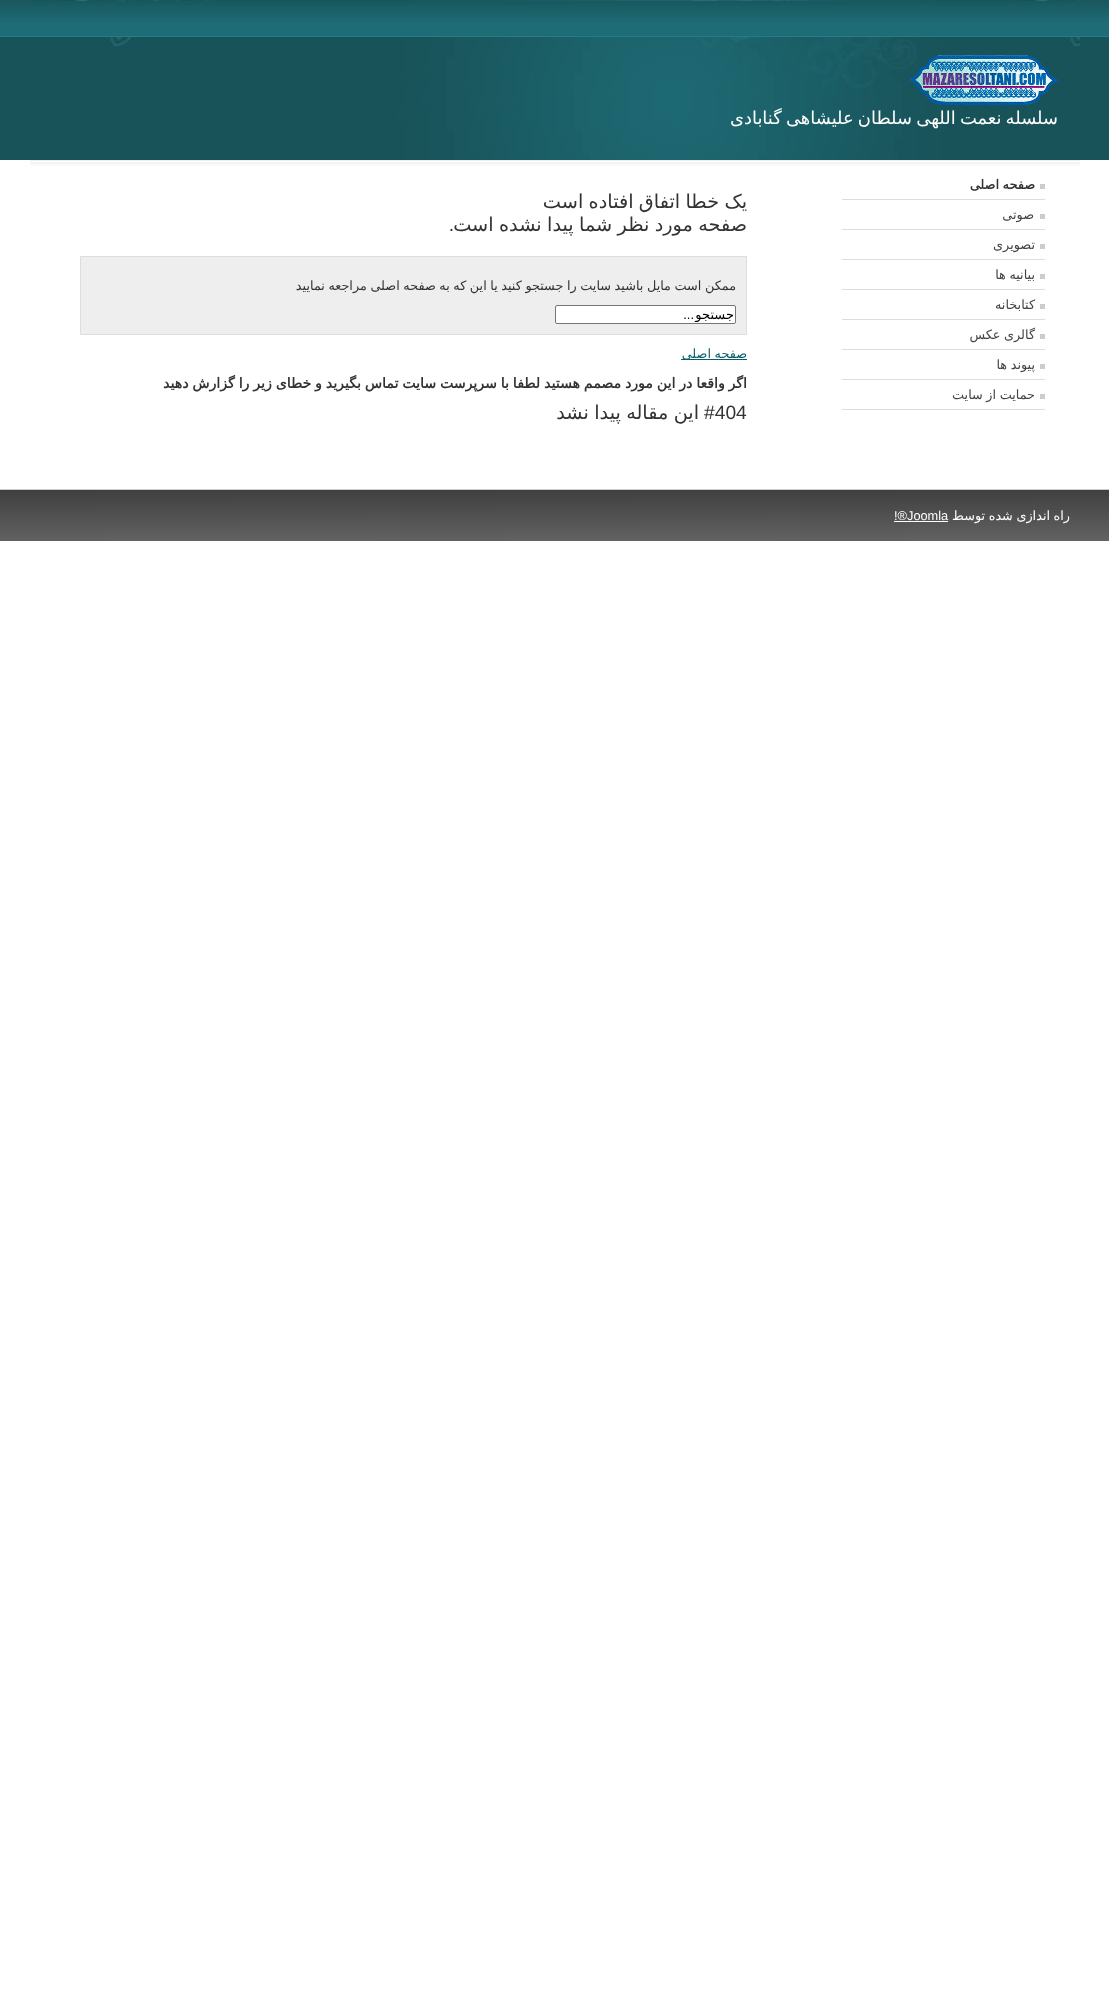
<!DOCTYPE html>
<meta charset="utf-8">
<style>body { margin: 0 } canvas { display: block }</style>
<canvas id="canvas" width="1109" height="2002"></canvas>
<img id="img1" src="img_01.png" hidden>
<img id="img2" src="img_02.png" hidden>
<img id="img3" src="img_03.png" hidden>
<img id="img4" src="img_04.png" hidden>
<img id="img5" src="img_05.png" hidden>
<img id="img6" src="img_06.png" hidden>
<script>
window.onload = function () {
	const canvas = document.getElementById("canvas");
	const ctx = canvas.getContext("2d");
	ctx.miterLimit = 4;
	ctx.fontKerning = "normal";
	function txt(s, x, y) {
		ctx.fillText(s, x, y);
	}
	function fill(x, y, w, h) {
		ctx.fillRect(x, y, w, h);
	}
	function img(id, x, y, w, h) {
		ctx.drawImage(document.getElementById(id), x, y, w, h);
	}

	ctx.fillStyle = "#FFFFFF";
	fill(0, 0, 1109, 2002);
	img("img1", 0, 0, 1109, 160);
	img("img2", 30, 0, 1050, 160);
	img("img3", 30, 1, 1050, 36);
	img("img4", 909, 55, 150, 50);
	img("img5", 30, 160, 1050, 6);
	ctx.fillStyle = "#DDDDDD";
	fill(842, 199, 203, 1);
	ctx.fillStyle = "#CCCCCC";
	fill(1040, 184, 5, 5);
	ctx.fillStyle = "#DDDDDD";
	fill(842, 229, 203, 1);
	ctx.fillStyle = "#CCCCCC";
	fill(1040, 214, 5, 5);
	ctx.fillStyle = "#DDDDDD";
	fill(842, 259, 203, 1);
	ctx.fillStyle = "#CCCCCC";
	fill(1040, 244, 5, 5);
	ctx.fillStyle = "#DDDDDD";
	fill(842, 289, 203, 1);
	ctx.fillStyle = "#CCCCCC";
	fill(1040, 274, 5, 5);
	ctx.fillStyle = "#DDDDDD";
	fill(842, 319, 203, 1);
	ctx.fillStyle = "#CCCCCC";
	fill(1040, 304, 5, 5);
	ctx.fillStyle = "#DDDDDD";
	fill(842, 349, 203, 1);
	ctx.fillStyle = "#CCCCCC";
	fill(1040, 334, 5, 5);
	ctx.fillStyle = "#DDDDDD";
	fill(842, 379, 203, 1);
	ctx.fillStyle = "#CCCCCC";
	fill(1040, 364, 5, 5);
	ctx.fillStyle = "#DDDDDD";
	fill(842, 409, 203, 1);
	ctx.fillStyle = "#CCCCCC";
	fill(1040, 394, 5, 5);
	ctx.fillStyle = "#EEEEEE";
	ctx.beginPath();
	ctx.rect(80.5, 256.5, 666, 78);
	ctx.fill();
	ctx.strokeStyle = "#DDDDDD";
	ctx.stroke();
	ctx.fillStyle = "#FFFFFF";
	ctx.beginPath();
	ctx.roundRect(555.5, 305.5, 180, 18, 1.5);
	ctx.fill();
	ctx.strokeStyle = "#767676";
	ctx.stroke();
	ctx.fillStyle = "#0A5E69";
	fill(681, 359, 66, 1);
	ctx.fillStyle = "#CCCCCC";
	fill(0, 489, 1109, 1);
	img("img6", 0, 490, 1109, 51);
	ctx.fillStyle = "#FFFFFF";
	fill(894, 521, 54, 1);
	ctx.wordSpacing = "-1.5px";
	ctx.direction = "rtl";
	ctx.font = "17.9px DejaVu Sans";
	txt("سلسله نعمت اللهی سلطان علیشاهی گنابادی", 1058, 124);
	ctx.wordSpacing = "-0.5px";
	ctx.font = "bold 12.8px DejaVu Sans";
	ctx.fillStyle = "#333333";
	txt("صفحه اصلی", 1035, 189);
	ctx.wordSpacing = "0px";
	ctx.font = "12.8px DejaVu Sans";
	ctx.fillStyle = "#444444";
	txt("صوتی", 1034, 219);
	txt("تصویری", 1035, 249);
	ctx.wordSpacing = "-0.5px";
	txt("بیانیه ها", 1035, 279);
	ctx.wordSpacing = "0px";
	txt("کتابخانه", 1035, 309);
	ctx.wordSpacing = "-0.5px";
	txt("گالری عکس", 1035, 339);
	txt("پیوند ها", 1035, 369);
	txt("حمایت از سایت", 1035, 399);
	ctx.wordSpacing = "-0.75px";
	ctx.font = "19.25px DejaVu Sans";
	ctx.fillStyle = "#333333";
	txt("یک خطا اتفاق افتاده است", 747, 208);
	txt("صفحه مورد نظر شما پیدا نشده است", 747, 231);
	ctx.wordSpacing = "0px";
	ctx.font = "19.25px Liberation Sans";
	txt(".", 454, 231);
	ctx.wordSpacing = "-0.5px";
	ctx.font = "12.8px DejaVu Sans";
	txt("ممکن است مایل باشید سایت را جستجو کنید یا این که به صفحه اصلی مراجعه نمایید", 736, 290);
	ctx.save();
	ctx.beginPath();
	ctx.rect(557, 307, 177, 15);
	ctx.clip();
	ctx.wordSpacing = "0px";
	ctx.font = "13px DejaVu Sans";
	ctx.fillStyle = "#000000";
	txt("جستجو", 734, 319);
	ctx.restore();
	ctx.wordSpacing = "0px";
	ctx.font = "13px Liberation Sans";
	ctx.fillStyle = "#000000";
	txt("...", 694, 319);
	ctx.wordSpacing = "-0.5px";
	ctx.font = "12.8px DejaVu Sans";
	ctx.fillStyle = "#0A5E69";
	txt("صفحه اصلی", 747, 358);
	ctx.wordSpacing = "-0.6px";
	ctx.font = "bold 14.1px DejaVu Sans";
	ctx.fillStyle = "#333333";
	txt("اگر واقعا در این مورد مصمم هستید لطفا با سرپرست سایت تماس بگیرید و خطای زیر را گزارش دهید", 747, 388);
	ctx.wordSpacing = "0px";
	ctx.direction = "ltr";
	ctx.font = "19.25px Liberation Sans";
	txt("#404", 704, 419);
	ctx.wordSpacing = "-0.75px";
	ctx.direction = "rtl";
	ctx.font = "19.25px DejaVu Sans";
	txt("این مقاله پیدا نشد", 699, 419);
	ctx.wordSpacing = "-0.5px";
	ctx.font = "12.8px DejaVu Sans";
	ctx.fillStyle = "#FFFFFF";
	txt("راه اندازی شده توسط", 1070, 520);
	ctx.wordSpacing = "0px";
	ctx.direction = "ltr";
	ctx.font = "12.8px Liberation Sans";
	txt("!®Joomla", 894, 520);
};
</script>
